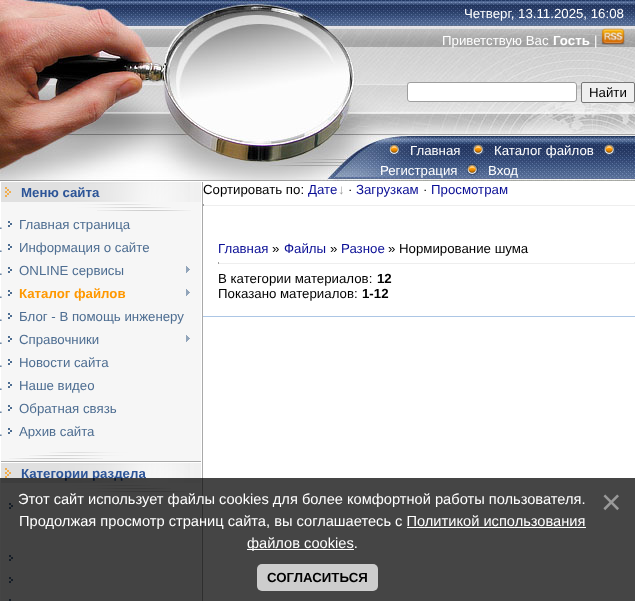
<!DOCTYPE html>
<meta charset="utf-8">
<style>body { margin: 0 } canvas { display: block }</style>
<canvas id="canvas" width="635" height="601"></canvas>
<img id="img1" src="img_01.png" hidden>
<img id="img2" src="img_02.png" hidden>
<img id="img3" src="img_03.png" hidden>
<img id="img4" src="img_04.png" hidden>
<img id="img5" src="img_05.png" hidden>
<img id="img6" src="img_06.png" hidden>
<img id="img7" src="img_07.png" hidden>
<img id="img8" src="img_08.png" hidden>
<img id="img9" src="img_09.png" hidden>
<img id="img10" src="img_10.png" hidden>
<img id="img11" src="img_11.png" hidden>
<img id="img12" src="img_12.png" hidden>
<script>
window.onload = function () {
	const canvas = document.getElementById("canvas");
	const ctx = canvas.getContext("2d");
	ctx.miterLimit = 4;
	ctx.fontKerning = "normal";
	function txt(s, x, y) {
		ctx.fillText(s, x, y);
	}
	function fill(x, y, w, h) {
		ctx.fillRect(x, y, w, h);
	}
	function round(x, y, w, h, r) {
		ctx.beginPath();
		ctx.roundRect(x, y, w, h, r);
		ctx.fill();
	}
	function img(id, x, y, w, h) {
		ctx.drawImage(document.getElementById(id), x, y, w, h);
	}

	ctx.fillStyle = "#FFFFFF";
	fill(0, 0, 635, 601);
	img("img1", 0, 0, 360, 181);
	img("img2", 360, 0, 275, 181);
	img("img3", 601, 28, 24, 17);
	ctx.beginPath();
	ctx.roundRect(407.5, 82.5, 169, 19, 2.5);
	ctx.fill();
	ctx.strokeStyle = "#9E9E9E";
	ctx.stroke();
	ctx.fillStyle = "#EFEFEF";
	ctx.beginPath();
	ctx.roundRect(581.5, 82.5, 53, 20, 1.5);
	ctx.fill();
	ctx.strokeStyle = "#767676";
	ctx.stroke();
	img("img4", 389, 144, 11, 11);
	img("img5", 473, 144, 11, 11);
	img("img6", 604, 144, 11, 11);
	img("img7", 467, 164, 11, 11);
	img("img8", 1, 182, 200, 20);
	img("img9", 1, 202, 200, 10);
	ctx.fillStyle = "#F6F6F6";
	fill(1, 212, 200, 240);
	img("img10", 8, 221, 4, 6);
	img("img10", 8, 244, 4, 6);
	img("img10", 8, 267, 4, 6);
	img("img11", 186, 266, 4, 7);
	img("img10", 8, 290, 4, 6);
	img("img11", 186, 289, 4, 7);
	img("img10", 8, 313, 4, 6);
	img("img10", 8, 336, 4, 6);
	img("img11", 186, 335, 4, 7);
	img("img10", 8, 359, 4, 6);
	img("img10", 8, 382, 4, 6);
	img("img10", 8, 405, 4, 6);
	img("img10", 8, 428, 4, 6);
	img("img12", 1, 452, 200, 10);
	img("img8", 1, 463, 200, 20);
	img("img9", 1, 483, 200, 10);
	fill(1, 493, 200, 108);
	img("img10", 9, 503, 4, 6);
	img("img10", 9, 555, 4, 6);
	img("img10", 9, 577, 4, 6);
	ctx.fillStyle = "#4D6D91";
	fill(9, 599, 2, 2);
	ctx.fillStyle = "#A9A9A9";
	fill(202, 182, 1, 419);
	ctx.fillStyle = "#EEEEEE";
	fill(203, 205, 432, 1);
	ctx.fillStyle = "#9F9F9F";
	fill(203, 204, 1, 2);
	ctx.fillStyle = "#EEEEEE";
	fill(634, 262, 1, 2);
	fill(218, 263, 417, 1);
	ctx.fillStyle = "#9F9F9F";
	fill(218, 262, 1, 2);
	ctx.fillStyle = "#ACC6E5";
	fill(203, 316, 432, 1);
	ctx.font = "13.25px Liberation Sans";
	ctx.fillStyle = "#FFFFFF";
	txt("Четверг, 13.11.2025, 16:08", 464, 18);
	txt("Приветствую Вас", 442, 45);
	ctx.font = "bold 13.25px Liberation Sans";
	txt("Гость", 553, 45);
	ctx.font = "13.25px Liberation Sans";
	txt("|", 594, 45);
	ctx.fillStyle = "#000000";
	txt("Найти", 589, 97);
	ctx.fillStyle = "#FFFFFF";
	txt("Главная", 410, 155);
	txt("Каталог файлов", 494, 155);
	txt("Регистрация", 380, 175);
	txt("Вход", 488, 175);
	ctx.font = "bold 13.25px Liberation Sans";
	ctx.fillStyle = "#2C5497";
	txt("Меню сайта", 21, 197);
	ctx.font = "13.25px Liberation Sans";
	ctx.fillStyle = "#4D6D91";
	txt(".", -1, 229);
	txt("Главная страница", 19, 229);
	txt(".", -1, 252);
	txt("Информация о сайте", 19, 252);
	txt(".", -1, 275);
	txt("ONLINE сервисы", 19, 275);
	txt(".", -1, 298);
	ctx.font = "bold 13.25px Liberation Sans";
	ctx.fillStyle = "#FF9800";
	txt("Каталог файлов", 19, 298);
	ctx.font = "13.25px Liberation Sans";
	ctx.fillStyle = "#4D6D91";
	txt(".", -1, 321);
	txt("Блог - В помощь инженеру", 19, 321);
	txt(".", -1, 344);
	txt("Справочники", 19, 344);
	txt(".", -1, 367);
	txt("Новости сайта", 19, 367);
	txt(".", -1, 390);
	txt("Наше видео", 19, 390);
	txt(".", -1, 413);
	txt("Обратная связь", 19, 413);
	txt(".", -1, 436);
	txt("Архив сайта", 19, 436);
	ctx.font = "bold 13.25px Liberation Sans";
	ctx.fillStyle = "#2C5497";
	txt("Категории раздела", 21, 478);
	ctx.font = "13.25px Liberation Sans";
	ctx.fillStyle = "#000000";
	txt("Сортировать по:", 203, 194);
	ctx.fillStyle = "#0A0E95";
	txt("Дате", 308, 194);
	ctx.fillStyle = "#A0A0A0";
	txt("↓", 338, 194);
	ctx.fillStyle = "#000000";
	txt("·", 348, 194);
	ctx.fillStyle = "#0A0E95";
	txt("Загрузкам", 356, 194);
	ctx.fillStyle = "#000000";
	txt("·", 423, 194);
	ctx.fillStyle = "#0A0E95";
	txt("Просмотрам", 431, 194);
	txt("Главная", 218, 253);
	ctx.fillStyle = "#000000";
	txt("»", 272, 253);
	ctx.fillStyle = "#0A0E95";
	txt("Файлы", 284, 253);
	ctx.fillStyle = "#000000";
	txt("»", 330, 253);
	ctx.fillStyle = "#0A0E95";
	txt("Разное", 341, 253);
	ctx.fillStyle = "#000000";
	txt("» Нормирование шума", 388, 253);
	txt("В категории материалов:", 218, 283);
	ctx.font = "bold 13.25px Liberation Sans";
	txt("12", 377, 283);
	ctx.font = "13.25px Liberation Sans";
	txt("Показано материалов:", 218, 298);
	ctx.font = "bold 13.25px Liberation Sans";
	txt("1-12", 362, 298);
	ctx.fillStyle = "rgba(0, 0, 0, 0.73)";
	fill(0, 478, 635, 123);
	ctx.font = "14.65px Liberation Sans";
	ctx.fillStyle = "#FFFFFF";
	txt("Этот сайт использует файлы cookies для более комфортной работы пользователя.", 18, 504);
	txt("Продолжая просмотр страниц сайта, вы соглашаетесь с Политикой использования", 19, 526);
	fill(407, 527, 179, 1);
	fill(247, 549, 107, 1);
	txt("файлов cookies.", 247, 548);
	ctx.font = "35px Liberation Sans";
	ctx.fillStyle = "#999999";
	txt("×", 601, 514);
	ctx.fillStyle = "#CDCDCD";
	round(257, 564, 121, 27, 5);
	ctx.font = "bold 13.25px Liberation Sans";
	ctx.fillStyle = "#000000";
	txt("СОГЛАСИТЬСЯ", 267, 582);
};
</script>
